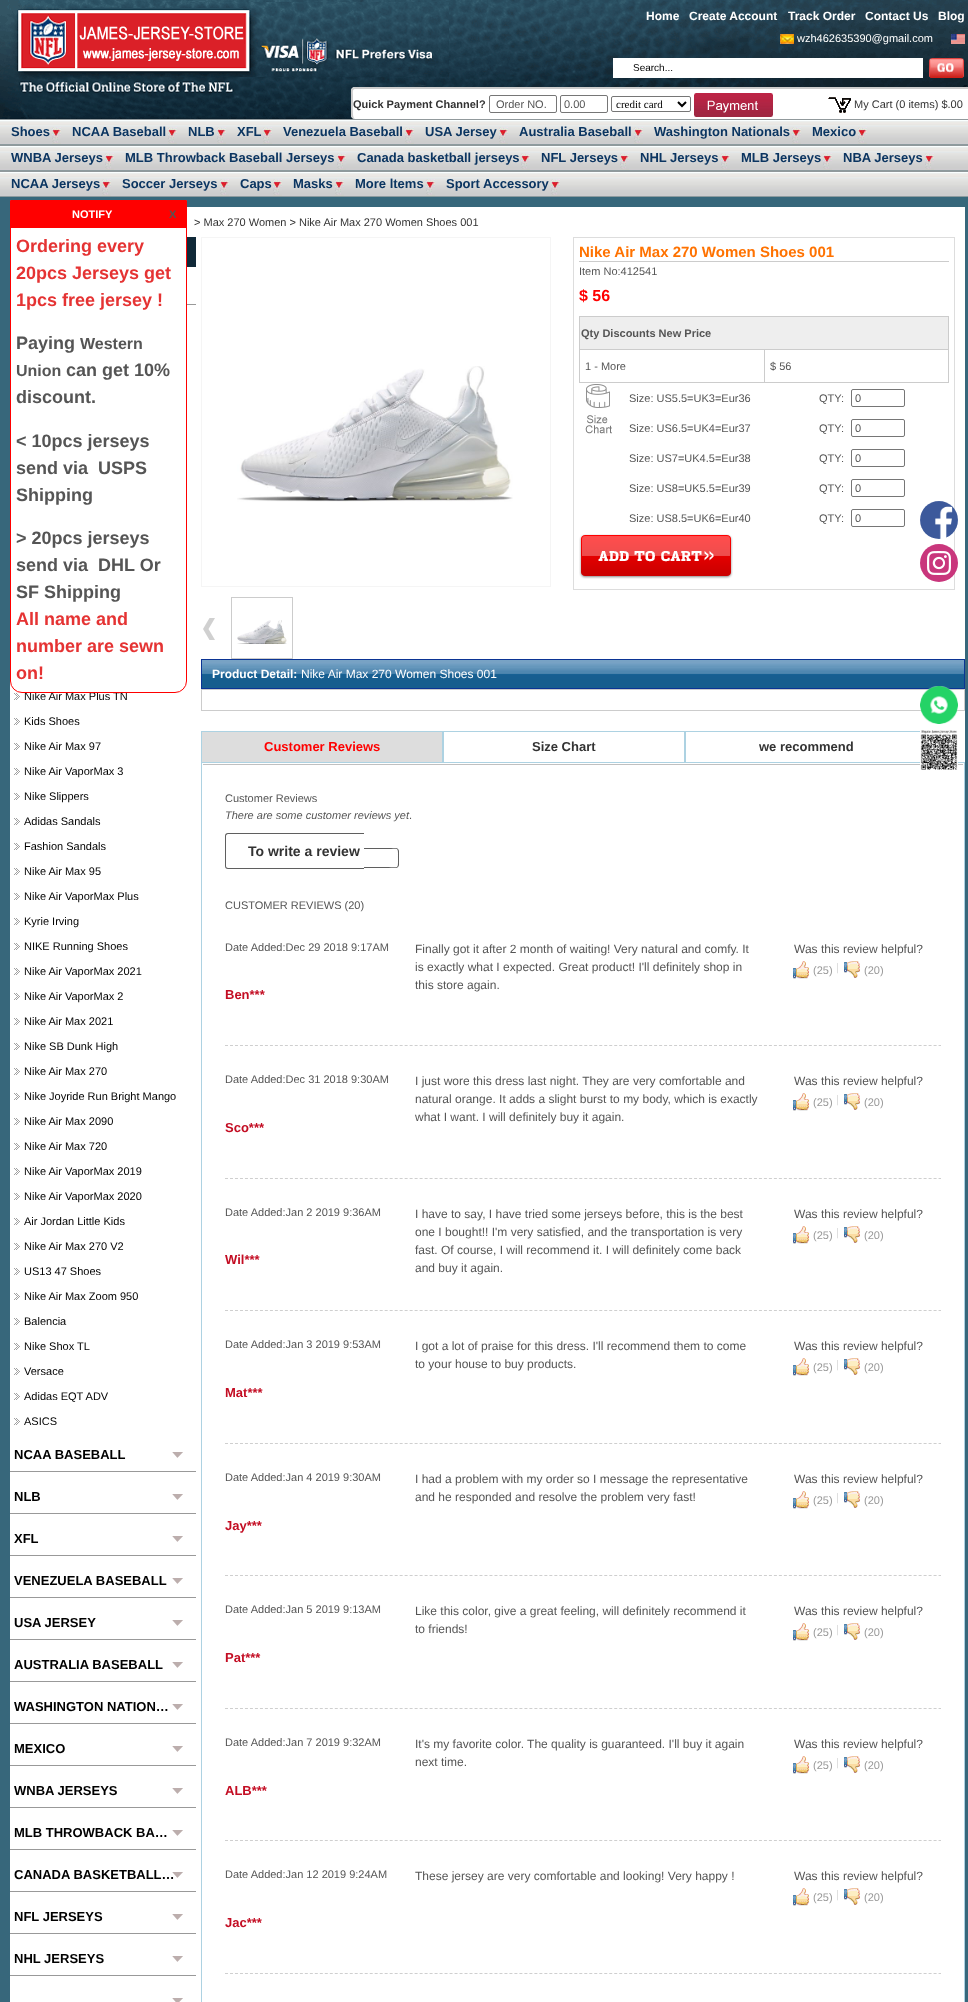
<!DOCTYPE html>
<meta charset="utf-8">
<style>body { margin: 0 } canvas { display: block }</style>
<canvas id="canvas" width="968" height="2002"></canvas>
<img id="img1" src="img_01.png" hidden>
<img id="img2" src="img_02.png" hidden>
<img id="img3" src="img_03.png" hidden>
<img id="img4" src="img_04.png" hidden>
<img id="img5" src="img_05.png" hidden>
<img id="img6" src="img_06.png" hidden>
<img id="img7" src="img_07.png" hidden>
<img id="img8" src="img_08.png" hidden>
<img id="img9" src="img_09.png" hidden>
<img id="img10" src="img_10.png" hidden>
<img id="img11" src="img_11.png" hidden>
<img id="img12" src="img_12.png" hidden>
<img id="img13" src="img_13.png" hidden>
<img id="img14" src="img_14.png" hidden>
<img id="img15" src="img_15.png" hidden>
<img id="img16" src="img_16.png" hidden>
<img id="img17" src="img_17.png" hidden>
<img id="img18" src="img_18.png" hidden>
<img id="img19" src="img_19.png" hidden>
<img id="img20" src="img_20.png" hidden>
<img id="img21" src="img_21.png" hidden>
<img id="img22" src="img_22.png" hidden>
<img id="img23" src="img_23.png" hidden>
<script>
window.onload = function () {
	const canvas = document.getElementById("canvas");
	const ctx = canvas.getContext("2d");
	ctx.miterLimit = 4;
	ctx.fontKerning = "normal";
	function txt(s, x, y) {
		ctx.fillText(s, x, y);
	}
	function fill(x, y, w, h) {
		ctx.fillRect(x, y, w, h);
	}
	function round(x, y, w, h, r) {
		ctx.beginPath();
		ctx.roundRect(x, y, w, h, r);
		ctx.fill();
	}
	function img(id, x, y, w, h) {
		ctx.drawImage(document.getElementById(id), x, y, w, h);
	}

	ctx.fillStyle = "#FFFFFF";
	fill(0, 0, 968, 2002);
	img("img1", 0, 0, 968, 119);
	img("img2", 780, 34, 14, 10);
	img("img3", 951, 34, 14, 10);
	fill(613, 58, 310, 20);
	img("img4", 929, 58, 35, 20);
	round(351, 87, 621, 32, 4);
	ctx.fillStyle = "#CCCCCC";
	ctx.beginPath();
	ctx.moveTo(355, 87);
	ctx.lineTo(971, 87);
	ctx.bezierCurveTo(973, 87, 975, 89, 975, 91);
	ctx.lineTo(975, 115);
	ctx.bezierCurveTo(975, 117, 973, 119, 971, 119);
	ctx.lineTo(355, 119);
	ctx.bezierCurveTo(353, 119, 351, 117, 351, 115);
	ctx.lineTo(351, 91);
	ctx.bezierCurveTo(351, 89, 353, 87, 355, 87);
	ctx.closePath();
	ctx.moveTo(355, 89);
	ctx.lineTo(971, 89);
	ctx.lineTo(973, 91);
	ctx.bezierCurveTo(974, 93, 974, 117, 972, 119);
	ctx.lineTo(355, 119);
	ctx.bezierCurveTo(352, 119, 353, 105, 353, 103);
	ctx.lineTo(353, 95);
	ctx.bezierCurveTo(353, 94, 352, 89, 355, 89);
	ctx.closePath();
	ctx.fill("evenodd");
	ctx.beginPath();
	ctx.roundRect(489.5, 95.5, 67, 17, 1.5);
	ctx.strokeStyle = "#767676";
	ctx.stroke();
	ctx.beginPath();
	ctx.roundRect(560.5, 95.5, 47, 17, 1.5);
	ctx.stroke();
	ctx.beginPath();
	ctx.roundRect(611.5, 96.5, 79, 15, 1.5);
	ctx.stroke();
	ctx.beginPath();
	ctx.moveTo(678, 102);
	ctx.lineTo(682, 106);
	ctx.lineTo(686, 102);
	ctx.strokeStyle = "#000000";
	ctx.lineWidth = 2;
	ctx.stroke();
	img("img5", 694, 93, 79, 24);
	img("img6", 828, 97, 23, 16);
	img("img7", 0, 119, 968, 78);
	img("img8", 52, 127, 9, 17);
	img("img8", 168, 127, 9, 17);
	img("img8", 217, 127, 9, 17);
	img("img8", 263, 127, 9, 17);
	img("img8", 405, 127, 9, 17);
	img("img8", 499, 127, 9, 17);
	img("img8", 634, 127, 9, 17);
	img("img8", 792, 127, 9, 17);
	img("img8", 858, 127, 9, 17);
	img("img8", 105, 153, 9, 17);
	img("img8", 337, 153, 9, 17);
	img("img8", 521, 153, 9, 17);
	img("img8", 620, 153, 9, 17);
	img("img8", 721, 153, 9, 17);
	img("img8", 823, 153, 9, 17);
	img("img8", 925, 153, 9, 17);
	img("img8", 102, 179, 9, 17);
	img("img8", 220, 179, 9, 17);
	img("img8", 273, 179, 9, 17);
	img("img8", 335, 179, 9, 17);
	img("img8", 426, 179, 9, 17);
	img("img8", 551, 179, 9, 17);
	ctx.fillStyle = "#37677B";
	fill(0, 197, 968, 1805);
	ctx.fillStyle = "#FFFFFF";
	fill(10, 207, 955, 1795);
	ctx.fillStyle = "#102938";
	fill(187, 237, 9, 30);
	ctx.fillStyle = "#999999";
	fill(187, 304, 9, 1);
	img("img9", 14, 693, 6, 7);
	img("img9", 14, 718, 6, 7);
	img("img9", 14, 743, 6, 7);
	img("img9", 14, 768, 6, 7);
	img("img9", 14, 793, 6, 7);
	img("img9", 14, 818, 6, 7);
	img("img9", 14, 843, 6, 7);
	img("img9", 14, 868, 6, 7);
	img("img9", 14, 893, 6, 7);
	img("img9", 14, 918, 6, 7);
	img("img9", 14, 943, 6, 7);
	img("img9", 14, 968, 6, 7);
	img("img9", 14, 993, 6, 7);
	img("img9", 14, 1018, 6, 7);
	img("img9", 14, 1043, 6, 7);
	img("img9", 14, 1068, 6, 7);
	img("img9", 14, 1093, 6, 7);
	img("img9", 14, 1118, 6, 7);
	img("img9", 14, 1143, 6, 7);
	img("img9", 14, 1168, 6, 7);
	img("img9", 14, 1193, 6, 7);
	img("img9", 14, 1218, 6, 7);
	img("img9", 14, 1243, 6, 7);
	img("img9", 14, 1268, 6, 7);
	img("img9", 14, 1293, 6, 7);
	img("img9", 14, 1318, 6, 7);
	img("img9", 14, 1343, 6, 7);
	img("img9", 14, 1368, 6, 7);
	img("img9", 14, 1393, 6, 7);
	img("img9", 14, 1418, 6, 7);
	img("img10", 172, 1452, 11, 6);
	fill(10, 1471, 186, 1);
	img("img10", 172, 1494, 11, 6);
	fill(10, 1513, 186, 1);
	img("img10", 172, 1536, 11, 6);
	fill(10, 1555, 186, 1);
	img("img10", 172, 1578, 11, 6);
	fill(10, 1597, 186, 1);
	img("img10", 172, 1620, 11, 6);
	fill(10, 1639, 186, 1);
	img("img10", 172, 1662, 11, 6);
	fill(10, 1681, 186, 1);
	img("img10", 172, 1704, 11, 6);
	fill(10, 1723, 186, 1);
	img("img10", 172, 1746, 11, 6);
	fill(10, 1765, 186, 1);
	img("img10", 172, 1788, 11, 6);
	fill(10, 1807, 186, 1);
	img("img10", 172, 1830, 11, 6);
	fill(10, 1849, 186, 1);
	img("img10", 172, 1872, 11, 6);
	fill(10, 1891, 186, 1);
	img("img10", 172, 1914, 11, 6);
	fill(10, 1933, 186, 1);
	img("img10", 172, 1956, 11, 6);
	fill(10, 1975, 186, 1);
	img("img11", 172, 1998, 11, 4);
	ctx.strokeStyle = "#F5F5F5";
	ctx.lineWidth = 1;
	ctx.strokeRect(201.5, 237.5, 349, 349);
	img("img12", 237, 366, 276, 136);
	img("img13", 203, 618, 12, 22);
	ctx.strokeStyle = "#CCCCCC";
	ctx.strokeRect(231.5, 597.5, 61, 61);
	img("img14", 237, 620, 50, 24);
	ctx.strokeStyle = "#DDDDDD";
	ctx.strokeRect(573.5, 237.5, 381, 352);
	ctx.fillStyle = "#CCCCCC";
	fill(579, 261, 370, 1);
	ctx.fillStyle = "#EEEEEE";
	fill(580, 317, 368, 32);
	ctx.fillStyle = "#CCCCCC";
	fill(579, 316, 370, 1);
	fill(948, 316, 1, 33);
	fill(579, 316, 1, 33);
	fill(579, 349, 370, 34);
	ctx.fillStyle = "#FFFFFF";
	fill(580, 350, 184, 32);
	fill(765, 350, 183, 32);
	img("img15", 585, 384, 27, 50);
	ctx.beginPath();
	ctx.roundRect(851.5, 389.5, 53, 17, 1.5);
	ctx.strokeStyle = "#767676";
	ctx.stroke();
	ctx.beginPath();
	ctx.roundRect(851.5, 419.5, 53, 17, 1.5);
	ctx.stroke();
	ctx.beginPath();
	ctx.roundRect(851.5, 449.5, 53, 17, 1.5);
	ctx.stroke();
	ctx.beginPath();
	ctx.roundRect(851.5, 479.5, 53, 17, 1.5);
	ctx.stroke();
	ctx.beginPath();
	ctx.roundRect(851.5, 509.5, 53, 17, 1.5);
	ctx.stroke();
	img("img16", 579, 534, 154, 45);
	img("img17", 202, 660, 762, 28);
	ctx.strokeStyle = "#0B3494";
	ctx.strokeRect(201.5, 659.5, 763, 29);
	ctx.strokeStyle = "#CCCCCC";
	ctx.strokeRect(201.5, 689.5, 763, 21);
	ctx.fillStyle = "#DDDDDD";
	fill(202, 732, 240, 30);
	ctx.fillStyle = "#ADD2E2";
	fill(201, 731, 726, 1);
	fill(442, 731, 2, 31);
	fill(201, 731, 1, 31);
	fill(684, 731, 2, 31);
	ctx.strokeStyle = "#ADD2E2";
	ctx.strokeRect(201.5, 762.5, 763, 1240);
	ctx.fillStyle = "#C0C0C0";
	fill(203, 764, 760, 1);
	ctx.fillStyle = "#5F5F5F";
	ctx.beginPath();
	ctx.moveTo(228, 833);
	ctx.lineTo(364, 833);
	ctx.lineTo(364, 869);
	ctx.lineTo(228, 869);
	ctx.bezierCurveTo(226, 869, 225, 868, 225, 866);
	ctx.lineTo(225, 836);
	ctx.bezierCurveTo(225, 834, 226, 833, 228, 833);
	ctx.closePath();
	ctx.moveTo(228, 834);
	ctx.lineTo(364, 834);
	ctx.lineTo(364, 868);
	ctx.lineTo(228, 868);
	ctx.bezierCurveTo(227, 868, 226, 867, 226, 866);
	ctx.lineTo(226, 836);
	ctx.bezierCurveTo(226, 835, 227, 834, 228, 834);
	ctx.closePath();
	ctx.fill("evenodd");
	ctx.beginPath();
	ctx.moveTo(364, 848);
	ctx.lineTo(396, 848);
	ctx.bezierCurveTo(397.5, 848, 399, 849.5, 399, 851);
	ctx.lineTo(399, 865);
	ctx.bezierCurveTo(399, 866.5, 397.5, 868, 396, 868);
	ctx.lineTo(364, 868);
	ctx.closePath();
	ctx.moveTo(364, 849);
	ctx.lineTo(385.5, 849);
	ctx.bezierCurveTo(399, 849, 398, 846, 398, 858);
	ctx.bezierCurveTo(398, 870, 399, 867, 385.5, 867);
	ctx.lineTo(364, 867);
	ctx.closePath();
	ctx.fill("evenodd");
	ctx.beginPath();
	ctx.moveTo(225, 1045.5);
	ctx.lineTo(941, 1045.5);
	ctx.strokeStyle = "#CFCFCF";
	ctx.setLineDash([3, 1.99]);
	ctx.stroke();
	img("img18", 793, 961, 16, 18);
	img("img19", 844, 961, 16, 17);
	ctx.beginPath();
	ctx.moveTo(225, 1178.5);
	ctx.lineTo(941, 1178.5);
	ctx.stroke();
	img("img18", 793, 1093, 16, 18);
	img("img19", 844, 1093, 16, 17);
	ctx.beginPath();
	ctx.moveTo(225, 1310.5);
	ctx.lineTo(941, 1310.5);
	ctx.stroke();
	img("img18", 793, 1226, 16, 18);
	img("img19", 844, 1226, 16, 17);
	ctx.beginPath();
	ctx.moveTo(225, 1443.5);
	ctx.lineTo(941, 1443.5);
	ctx.stroke();
	img("img18", 793, 1358, 16, 18);
	img("img19", 844, 1358, 16, 17);
	ctx.beginPath();
	ctx.moveTo(225, 1575.5);
	ctx.lineTo(941, 1575.5);
	ctx.stroke();
	img("img18", 793, 1491, 16, 18);
	img("img19", 844, 1491, 16, 17);
	ctx.beginPath();
	ctx.moveTo(225, 1708.5);
	ctx.lineTo(941, 1708.5);
	ctx.stroke();
	img("img18", 793, 1623, 16, 18);
	img("img19", 844, 1623, 16, 17);
	ctx.beginPath();
	ctx.moveTo(225, 1840.5);
	ctx.lineTo(941, 1840.5);
	ctx.stroke();
	img("img18", 793, 1756, 16, 18);
	img("img19", 844, 1756, 16, 17);
	ctx.beginPath();
	ctx.moveTo(225, 1973.5);
	ctx.lineTo(941, 1973.5);
	ctx.stroke();
	img("img18", 793, 1888, 16, 18);
	img("img19", 844, 1888, 16, 17);
	img("img20", 920, 501, 38, 38);
	ctx.fillStyle = "#C9367C";
	ctx.beginPath();
	ctx.arc(939, 563, 19, 0, Math.PI * 2);
	ctx.fill();
	img("img21", 927, 551, 24, 24);
	img("img22", 920, 686, 38, 38);
	img("img23", 920, 730, 38, 40);
	ctx.font = "bold 12px Liberation Sans";
	ctx.fillStyle = "#FFFFFF";
	txt("Home", 646, 20);
	txt("Create Account", 689, 20);
	txt("Track Order", 788, 20);
	txt("Contact Us", 865, 20);
	txt("Blog", 938, 20);
	ctx.font = "11px Liberation Sans";
	txt("wzh462635390@gmail.com", 797, 42);
	ctx.font = "10px Liberation Sans";
	ctx.fillStyle = "#000000";
	txt("Search...", 633, 71);
	ctx.font = "bold 11px Liberation Sans";
	ctx.fillStyle = "#333333";
	txt("Quick Payment Channel?", 353, 108);
	ctx.font = "11px Liberation Sans";
	ctx.fillStyle = "#555555";
	txt("Order NO.", 496, 108);
	txt("0.00", 564, 108);
	ctx.font = "11px Liberation Serif";
	ctx.fillStyle = "#000000";
	txt("credit card", 616, 108);
	ctx.font = "11px Liberation Sans";
	ctx.fillStyle = "#333333";
	txt("My Cart (0 items) $.00", 854, 108);
	ctx.font = "bold 13px Liberation Sans";
	ctx.fillStyle = "#0B3561";
	txt("Shoes", 11, 136);
	txt("NCAA Baseball", 72, 136);
	txt("NLB", 188, 136);
	txt("XFL", 237, 136);
	txt("Venezuela Baseball", 283, 136);
	txt("USA Jersey", 425, 136);
	txt("Australia Baseball", 519, 136);
	txt("Washington Nationals", 654, 136);
	txt("Mexico", 812, 136);
	txt("WNBA Jerseys", 11, 162);
	txt("MLB Throwback Baseball Jerseys", 125, 162);
	txt("Canada basketball jerseys", 357, 162);
	txt("NFL Jerseys", 541, 162);
	txt("NHL Jerseys", 640, 162);
	txt("MLB Jerseys", 741, 162);
	txt("NBA Jerseys", 843, 162);
	txt("NCAA Jerseys", 11, 188);
	txt("Soccer Jerseys", 122, 188);
	txt("Caps", 240, 188);
	txt("Masks", 293, 188);
	txt("More ltems", 355, 188);
	txt("Sport Accessory", 446, 188);
	ctx.font = "11px Liberation Sans";
	ctx.fillStyle = "#333333";
	txt("> Max 270 Women > Nike Air Max 270 Women Shoes 001", 194, 226);
	ctx.fillStyle = "#000000";
	txt("Nike Air Max Plus TN", 24, 700);
	ctx.fillStyle = "#FFFFFF";
	ctx.beginPath();
	ctx.roundRect(10.5, 200.5, 176, 492, [0, 0, 11.5, 11.5]);
	ctx.fill();
	ctx.strokeStyle = "#FF0000";
	ctx.setLineDash([]);
	ctx.stroke();
	ctx.font = "bold 18px Liberation Sans";
	ctx.fillStyle = "#E53333";
	txt("on!", 16, 679);
	txt("number are sewn", 16, 652);
	txt("All name and", 16, 625);
	ctx.fillStyle = "#555555";
	txt("SF Shipping", 16, 598);
	txt("send via  DHL Or", 16, 571);
	txt("> 20pcs jerseys", 16, 544);
	txt("Shipping", 16, 501);
	txt("send via  USPS", 16, 474);
	txt("< 10pcs jerseys", 16, 447);
	txt("discount.", 16, 403);
	txt("can get 10%", 66, 376);
	ctx.font = "bold 16px Liberation Sans";
	txt("Union", 16, 376);
	txt("Western", 80, 349);
	ctx.font = "bold 18px Liberation Sans";
	txt("Paying", 16, 349);
	ctx.fillStyle = "#E53333";
	txt("1pcs free jersey !", 16, 306);
	txt("20pcs Jerseys get", 16, 279);
	txt("Ordering every", 16, 252);
	ctx.fillStyle = "#FF0000";
	fill(11, 201, 175, 27);
	ctx.font = "bold 11px Liberation Sans";
	ctx.fillStyle = "#FFFFFF";
	txt("NOTIFY", 72, 218);
	ctx.fillStyle = "#555555";
	txt("X", 169, 218);
	ctx.font = "11px Liberation Sans";
	ctx.fillStyle = "#000000";
	txt("Kids Shoes", 24, 725);
	txt("Nike Air Max 97", 24, 750);
	txt("Nike Air VaporMax 3", 24, 775);
	txt("Nike Slippers", 24, 800);
	txt("Adidas Sandals", 24, 825);
	txt("Fashion Sandals", 24, 850);
	txt("Nike Air Max 95", 24, 875);
	txt("Nike Air VaporMax Plus", 24, 900);
	txt("Kyrie Irving", 24, 925);
	txt("NIKE Running Shoes", 24, 950);
	txt("Nike Air VaporMax 2021", 24, 975);
	txt("Nike Air VaporMax 2", 24, 1000);
	txt("Nike Air Max 2021", 24, 1025);
	txt("Nike SB Dunk High", 24, 1050);
	txt("Nike Air Max 270", 24, 1075);
	txt("Nike Joyride Run Bright Mango", 24, 1100);
	txt("Nike Air Max 2090", 24, 1125);
	txt("Nike Air Max 720", 24, 1150);
	txt("Nike Air VaporMax 2019", 24, 1175);
	txt("Nike Air VaporMax 2020", 24, 1200);
	txt("Air Jordan Little Kids", 24, 1225);
	txt("Nike Air Max 270 V2", 24, 1250);
	txt("US13 47 Shoes", 24, 1275);
	txt("Nike Air Max Zoom 950", 24, 1300);
	txt("Balencia", 24, 1325);
	txt("Nike Shox TL", 24, 1350);
	txt("Versace", 24, 1375);
	txt("Adidas EQT ADV", 24, 1400);
	txt("ASICS", 24, 1425);
	ctx.font = "bold 13px Liberation Sans";
	txt("NCAA BASEBALL", 14, 1459);
	txt("NLB", 14, 1501);
	txt("XFL", 14, 1543);
	txt("VENEZUELA BASEBALL", 14, 1585);
	txt("USA JERSEY", 14, 1627);
	txt("AUSTRALIA BASEBALL", 14, 1669);
	txt("WASHINGTON NATION…", 14, 1711);
	txt("MEXICO", 14, 1753);
	txt("WNBA JERSEYS", 14, 1795);
	txt("MLB THROWBACK BA…", 14, 1837);
	txt("CANADA BASKETBALL…", 14, 1879);
	txt("NFL JERSEYS", 14, 1921);
	txt("NHL JERSEYS", 14, 1963);
	ctx.font = "bold 15px Liberation Sans";
	ctx.fillStyle = "#FF7200";
	txt("Nike Air Max 270 Women Shoes 001", 579, 257);
	ctx.font = "11px Liberation Sans";
	ctx.fillStyle = "#555555";
	txt("Item No:412541", 579, 275);
	ctx.font = "bold 16px Liberation Sans";
	ctx.fillStyle = "#FF0000";
	txt("$ 56", 579, 301);
	ctx.font = "bold 11px Liberation Sans";
	ctx.fillStyle = "#555555";
	txt("Qty Discounts New Price", 581, 337);
	ctx.font = "11px Liberation Sans";
	txt("1 - More", 585, 370);
	txt("$ 56", 770, 370);
	txt("Size: US5.5=UK3=Eur36", 629, 402);
	txt("QTY:", 819, 402);
	txt("0", 855, 402);
	txt("Size: US6.5=UK4=Eur37", 629, 432);
	txt("QTY:", 819, 432);
	txt("0", 855, 432);
	txt("Size: US7=UK4.5=Eur38", 629, 462);
	txt("QTY:", 819, 462);
	txt("0", 855, 462);
	txt("Size: US8=UK5.5=Eur39", 629, 492);
	txt("QTY:", 819, 492);
	txt("0", 855, 492);
	txt("Size: US8.5=UK6=Eur40", 629, 522);
	txt("QTY:", 819, 522);
	txt("0", 855, 522);
	ctx.font = "bold 12px Liberation Sans";
	ctx.fillStyle = "#FFFFFF";
	txt("Product Detail:", 212, 678);
	ctx.font = "12px Liberation Sans";
	txt("Nike Air Max 270 Women Shoes 001", 301, 678);
	ctx.font = "bold 13px Liberation Sans";
	ctx.fillStyle = "#FF0000";
	txt("Customer Reviews", 264, 751);
	ctx.fillStyle = "#333333";
	txt("Size Chart", 532, 751);
	txt("we recommend", 759, 751);
	ctx.font = "11px Liberation Sans";
	ctx.fillStyle = "#555555";
	txt("Customer Reviews", 225, 802);
	ctx.font = "italic 11px Liberation Sans";
	txt("There are some customer reviews yet", 225, 819);
	ctx.font = "11px Liberation Sans";
	txt(".", 409, 819);
	ctx.font = "bold 14px Liberation Sans";
	ctx.fillStyle = "#333333";
	txt("To write a review", 248, 856);
	ctx.font = "11px Liberation Sans";
	ctx.fillStyle = "#555555";
	txt("CUSTOMER REVIEWS (20)", 225, 909);
	txt("Date Added:Dec 29 2018 9:17AM", 225, 951);
	ctx.font = "bold 13px Liberation Sans";
	ctx.fillStyle = "#C30D23";
	txt("Ben***", 225, 999);
	ctx.font = "12px Liberation Sans";
	ctx.fillStyle = "#555555";
	txt("Finally got it after 2 month of waiting! Very natural and comfy. It", 415, 953);
	txt("is exactly what I expected. Great product! I'll definitely shop in", 415, 971);
	txt("this store again.", 415, 989);
	txt("Was this review helpful?", 794, 953);
	ctx.font = "11px Liberation Sans";
	ctx.fillStyle = "#999999";
	txt("(25)", 813, 974);
	ctx.fillStyle = "#DBDBDB";
	txt("|", 836, 971);
	ctx.fillStyle = "#999999";
	txt("(20)", 864, 974);
	ctx.fillStyle = "#555555";
	txt("Date Added:Dec 31 2018 9:30AM", 225, 1083);
	ctx.font = "bold 13px Liberation Sans";
	ctx.fillStyle = "#C30D23";
	txt("Sco***", 225, 1132);
	ctx.font = "12px Liberation Sans";
	ctx.fillStyle = "#555555";
	txt("I just wore this dress last night. They are very comfortable and", 415, 1085);
	txt("natural orange. It adds a slight burst to my body, which is exactly", 415, 1103);
	txt("what I want. I will definitely buy it again.", 415, 1121);
	txt("Was this review helpful?", 794, 1085);
	ctx.font = "11px Liberation Sans";
	ctx.fillStyle = "#999999";
	txt("(25)", 813, 1106);
	ctx.fillStyle = "#DBDBDB";
	txt("|", 836, 1103);
	ctx.fillStyle = "#999999";
	txt("(20)", 864, 1106);
	ctx.fillStyle = "#555555";
	txt("Date Added:Jan 2 2019 9:36AM", 225, 1216);
	ctx.font = "bold 13px Liberation Sans";
	ctx.fillStyle = "#C30D23";
	txt("Wil***", 225, 1264);
	ctx.font = "12px Liberation Sans";
	ctx.fillStyle = "#555555";
	txt("I have to say, I have tried some jerseys before, this is the best", 415, 1218);
	txt("one I bought!! I'm very satisfied, and the transportation is very", 415, 1236);
	txt("fast. Of course, I will recommend it. I will definitely come back", 415, 1254);
	txt("and buy it again.", 415, 1272);
	txt("Was this review helpful?", 794, 1218);
	ctx.font = "11px Liberation Sans";
	ctx.fillStyle = "#999999";
	txt("(25)", 813, 1239);
	ctx.fillStyle = "#DBDBDB";
	txt("|", 836, 1236);
	ctx.fillStyle = "#999999";
	txt("(20)", 864, 1239);
	ctx.fillStyle = "#555555";
	txt("Date Added:Jan 3 2019 9:53AM", 225, 1348);
	ctx.font = "bold 13px Liberation Sans";
	ctx.fillStyle = "#C30D23";
	txt("Mat***", 225, 1397);
	ctx.font = "12px Liberation Sans";
	ctx.fillStyle = "#555555";
	txt("I got a lot of praise for this dress. I'll recommend them to come", 415, 1350);
	txt("to your house to buy products.", 415, 1368);
	txt("Was this review helpful?", 794, 1350);
	ctx.font = "11px Liberation Sans";
	ctx.fillStyle = "#999999";
	txt("(25)", 813, 1371);
	ctx.fillStyle = "#DBDBDB";
	txt("|", 836, 1368);
	ctx.fillStyle = "#999999";
	txt("(20)", 864, 1371);
	ctx.fillStyle = "#555555";
	txt("Date Added:Jan 4 2019 9:30AM", 225, 1481);
	ctx.font = "bold 13px Liberation Sans";
	ctx.fillStyle = "#C30D23";
	txt("Jay***", 225, 1530);
	ctx.font = "12px Liberation Sans";
	ctx.fillStyle = "#555555";
	txt("I had a problem with my order so I message the representative", 415, 1483);
	txt("and he responded and resolve the problem very fast!", 415, 1501);
	txt("Was this review helpful?", 794, 1483);
	ctx.font = "11px Liberation Sans";
	ctx.fillStyle = "#999999";
	txt("(25)", 813, 1504);
	ctx.fillStyle = "#DBDBDB";
	txt("|", 836, 1501);
	ctx.fillStyle = "#999999";
	txt("(20)", 864, 1504);
	ctx.fillStyle = "#555555";
	txt("Date Added:Jan 5 2019 9:13AM", 225, 1613);
	ctx.font = "bold 13px Liberation Sans";
	ctx.fillStyle = "#C30D23";
	txt("Pat***", 225, 1662);
	ctx.font = "12px Liberation Sans";
	ctx.fillStyle = "#555555";
	txt("Like this color, give a great feeling, will definitely recommend it", 415, 1615);
	txt("to friends!", 415, 1633);
	txt("Was this review helpful?", 794, 1615);
	ctx.font = "11px Liberation Sans";
	ctx.fillStyle = "#999999";
	txt("(25)", 813, 1636);
	ctx.fillStyle = "#DBDBDB";
	txt("|", 836, 1633);
	ctx.fillStyle = "#999999";
	txt("(20)", 864, 1636);
	ctx.fillStyle = "#555555";
	txt("Date Added:Jan 7 2019 9:32AM", 225, 1746);
	ctx.font = "bold 13px Liberation Sans";
	ctx.fillStyle = "#C30D23";
	txt("ALB***", 225, 1795);
	ctx.font = "12px Liberation Sans";
	ctx.fillStyle = "#555555";
	txt("It's my favorite color. The quality is guaranteed. I'll buy it again", 415, 1748);
	txt("next time.", 415, 1766);
	txt("Was this review helpful?", 794, 1748);
	ctx.font = "11px Liberation Sans";
	ctx.fillStyle = "#999999";
	txt("(25)", 813, 1769);
	ctx.fillStyle = "#DBDBDB";
	txt("|", 836, 1766);
	ctx.fillStyle = "#999999";
	txt("(20)", 864, 1769);
	ctx.fillStyle = "#555555";
	txt("Date Added:Jan 12 2019 9:24AM", 225, 1878);
	ctx.font = "bold 13px Liberation Sans";
	ctx.fillStyle = "#C30D23";
	txt("Jac***", 225, 1927);
	ctx.font = "12px Liberation Sans";
	ctx.fillStyle = "#555555";
	txt("These jersey are very comfortable and looking! Very happy !", 415, 1880);
	txt("Was this review helpful?", 794, 1880);
	ctx.font = "11px Liberation Sans";
	ctx.fillStyle = "#999999";
	txt("(25)", 813, 1901);
	ctx.fillStyle = "#DBDBDB";
	txt("|", 836, 1898);
	ctx.fillStyle = "#999999";
	txt("(20)", 864, 1901);
};
</script>
